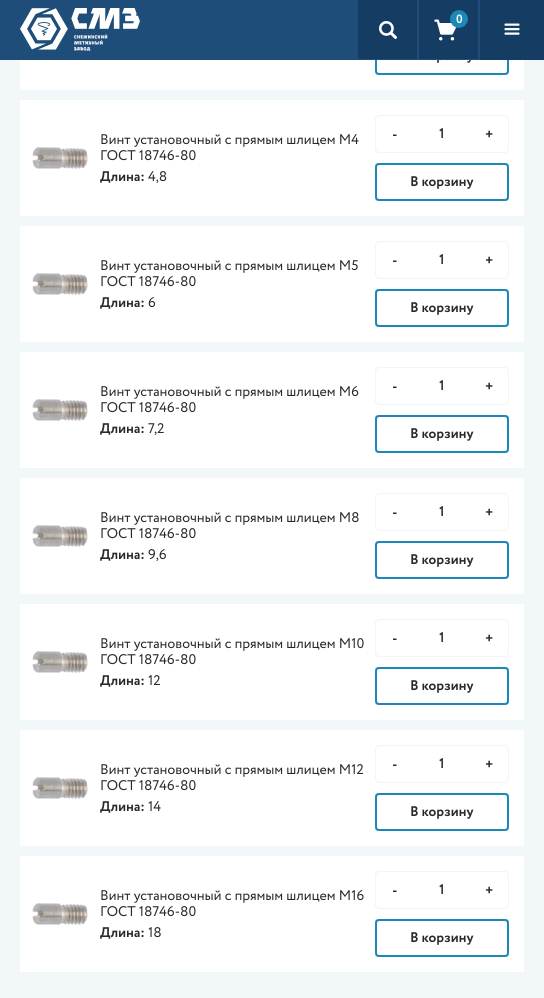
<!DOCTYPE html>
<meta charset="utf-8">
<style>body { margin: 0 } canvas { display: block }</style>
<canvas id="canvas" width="544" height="998"></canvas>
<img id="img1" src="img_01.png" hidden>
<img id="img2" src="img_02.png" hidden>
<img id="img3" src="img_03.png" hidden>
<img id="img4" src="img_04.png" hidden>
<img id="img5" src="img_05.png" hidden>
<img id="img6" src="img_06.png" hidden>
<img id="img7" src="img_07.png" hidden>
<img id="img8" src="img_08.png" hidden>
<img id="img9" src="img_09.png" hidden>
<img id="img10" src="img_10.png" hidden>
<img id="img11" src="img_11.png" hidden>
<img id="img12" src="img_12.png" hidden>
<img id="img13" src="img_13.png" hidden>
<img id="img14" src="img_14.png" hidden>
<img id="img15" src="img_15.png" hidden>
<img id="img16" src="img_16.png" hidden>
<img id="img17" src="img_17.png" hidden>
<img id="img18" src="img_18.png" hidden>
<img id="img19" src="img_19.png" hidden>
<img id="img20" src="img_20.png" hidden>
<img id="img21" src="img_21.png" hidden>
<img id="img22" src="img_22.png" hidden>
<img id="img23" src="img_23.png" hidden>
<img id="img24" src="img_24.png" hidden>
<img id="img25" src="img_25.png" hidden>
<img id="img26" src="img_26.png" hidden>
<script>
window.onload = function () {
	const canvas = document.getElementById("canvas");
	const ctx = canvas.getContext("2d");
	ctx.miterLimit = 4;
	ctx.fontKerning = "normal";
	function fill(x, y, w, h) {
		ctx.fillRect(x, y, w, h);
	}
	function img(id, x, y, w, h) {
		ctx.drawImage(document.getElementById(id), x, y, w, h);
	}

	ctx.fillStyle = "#F2F7FA";
	fill(0, 0, 544, 998);
	ctx.fillStyle = "#FFFFFF";
	fill(20, 60, 504, 30);
	ctx.beginPath();
	ctx.roundRect(376, 38, 132, 36, 3);
	ctx.strokeStyle = "#1D88B6";
	ctx.lineWidth = 2;
	ctx.stroke();
	ctx.fillStyle = "#1E4D79";
	fill(0, 0, 480, 60);
	img("img1", 20, 8, 120, 43);
	ctx.fillStyle = "#153D63";
	fill(358, 0, 59, 59);
	img("img2", 379, 21, 18, 18);
	fill(419, 0, 59, 59);
	img("img3", 434, 19, 23, 22);
	ctx.fillStyle = "#1D88B6";
	ctx.beginPath();
	ctx.arc(459, 19, 9, 0, Math.PI * 2);
	ctx.fill();
	img("img4", 456, 14, 7, 10);
	ctx.fillStyle = "#153D63";
	fill(480, 0, 64, 60);
	img("img5", 504, 23, 16, 12);
	img("img6", 413, 60, 58, 3);
	ctx.fillStyle = "#FFFFFF";
	fill(20, 100, 504, 116);
	img("img7", 32, 147, 56, 22);
	img("img8", 101, 134, 258, 13);
	img("img9", 101, 150, 95, 11);
	img("img10", 100, 171, 44, 12);
	img("img11", 148, 171, 19, 12);
	ctx.beginPath();
	ctx.roundRect(375.5, 115.5, 133, 37, 3.5);
	ctx.strokeStyle = "#F4F4F4";
	ctx.lineWidth = 1;
	ctx.stroke();
	ctx.fillStyle = "#292929";
	ctx.beginPath();
	ctx.moveTo(393, 136);
	ctx.lineTo(393, 134.5);
	ctx.lineTo(396.5, 134.5);
	ctx.lineTo(396.5, 136);
	ctx.closePath();
	ctx.fill();
	img("img12", 439, 128, 4, 10);
	img("img13", 485, 130, 8, 8);
	ctx.beginPath();
	ctx.roundRect(376, 164, 132, 36, 3);
	ctx.strokeStyle = "#1D88B6";
	ctx.lineWidth = 2;
	ctx.stroke();
	img("img14", 411, 176, 63, 13);
	ctx.fillStyle = "#FFFFFF";
	fill(20, 226, 504, 116);
	img("img7", 32, 273, 56, 22);
	img("img15", 101, 260, 257, 13);
	img("img9", 101, 276, 95, 11);
	img("img10", 100, 297, 44, 12);
	img("img16", 148, 297, 8, 11);
	ctx.beginPath();
	ctx.roundRect(375.5, 241.5, 133, 37, 3.5);
	ctx.strokeStyle = "#F4F4F4";
	ctx.lineWidth = 1;
	ctx.stroke();
	ctx.fillStyle = "#292929";
	ctx.beginPath();
	ctx.moveTo(393, 262);
	ctx.lineTo(393, 260.5);
	ctx.lineTo(396.5, 260.5);
	ctx.lineTo(396.5, 262);
	ctx.closePath();
	ctx.fill();
	img("img12", 439, 254, 4, 10);
	img("img13", 485, 256, 8, 8);
	ctx.beginPath();
	ctx.roundRect(376, 290, 132, 36, 3);
	ctx.strokeStyle = "#1D88B6";
	ctx.lineWidth = 2;
	ctx.stroke();
	img("img14", 411, 302, 63, 13);
	ctx.fillStyle = "#FFFFFF";
	fill(20, 352, 504, 116);
	img("img7", 32, 399, 56, 22);
	img("img17", 101, 386, 258, 13);
	img("img9", 101, 402, 95, 11);
	img("img10", 100, 423, 44, 12);
	img("img18", 148, 423, 16, 12);
	ctx.beginPath();
	ctx.roundRect(375.5, 367.5, 133, 37, 3.5);
	ctx.strokeStyle = "#F4F4F4";
	ctx.lineWidth = 1;
	ctx.stroke();
	ctx.fillStyle = "#292929";
	ctx.beginPath();
	ctx.moveTo(393, 388);
	ctx.lineTo(393, 386.5);
	ctx.lineTo(396.5, 386.5);
	ctx.lineTo(396.5, 388);
	ctx.closePath();
	ctx.fill();
	img("img12", 439, 380, 4, 10);
	img("img13", 485, 382, 8, 8);
	ctx.beginPath();
	ctx.roundRect(376, 416, 132, 36, 3);
	ctx.strokeStyle = "#1D88B6";
	ctx.lineWidth = 2;
	ctx.stroke();
	img("img14", 411, 428, 63, 13);
	ctx.fillStyle = "#FFFFFF";
	fill(20, 478, 504, 116);
	img("img7", 32, 525, 56, 22);
	img("img19", 101, 512, 258, 13);
	img("img9", 101, 528, 95, 11);
	img("img10", 100, 549, 44, 12);
	img("img20", 148, 549, 18, 12);
	ctx.beginPath();
	ctx.roundRect(375.5, 493.5, 133, 37, 3.5);
	ctx.strokeStyle = "#F4F4F4";
	ctx.lineWidth = 1;
	ctx.stroke();
	ctx.fillStyle = "#292929";
	ctx.beginPath();
	ctx.moveTo(393, 514);
	ctx.lineTo(393, 512.5);
	ctx.lineTo(396.5, 512.5);
	ctx.lineTo(396.5, 514);
	ctx.closePath();
	ctx.fill();
	img("img12", 439, 506, 4, 10);
	img("img13", 485, 508, 8, 8);
	ctx.beginPath();
	ctx.roundRect(376, 542, 132, 36, 3);
	ctx.strokeStyle = "#1D88B6";
	ctx.lineWidth = 2;
	ctx.stroke();
	img("img14", 411, 554, 63, 13);
	ctx.fillStyle = "#FFFFFF";
	fill(20, 604, 504, 116);
	img("img7", 32, 651, 56, 22);
	img("img21", 101, 638, 263, 13);
	img("img9", 101, 654, 95, 11);
	img("img10", 100, 675, 44, 12);
	img("img22", 148, 675, 12, 10);
	ctx.beginPath();
	ctx.roundRect(375.5, 619.5, 133, 37, 3.5);
	ctx.strokeStyle = "#F4F4F4";
	ctx.lineWidth = 1;
	ctx.stroke();
	ctx.fillStyle = "#292929";
	ctx.beginPath();
	ctx.moveTo(393, 640);
	ctx.lineTo(393, 638.5);
	ctx.lineTo(396.5, 638.5);
	ctx.lineTo(396.5, 640);
	ctx.closePath();
	ctx.fill();
	img("img12", 439, 632, 4, 10);
	img("img13", 485, 634, 8, 8);
	ctx.beginPath();
	ctx.roundRect(376, 668, 132, 36, 3);
	ctx.strokeStyle = "#1D88B6";
	ctx.lineWidth = 2;
	ctx.stroke();
	img("img14", 411, 680, 63, 13);
	ctx.fillStyle = "#FFFFFF";
	fill(20, 730, 504, 116);
	img("img7", 32, 777, 56, 22);
	img("img23", 101, 764, 263, 13);
	img("img9", 101, 780, 95, 11);
	img("img10", 100, 801, 44, 12);
	img("img24", 148, 801, 13, 10);
	ctx.beginPath();
	ctx.roundRect(375.5, 745.5, 133, 37, 3.5);
	ctx.strokeStyle = "#F4F4F4";
	ctx.lineWidth = 1;
	ctx.stroke();
	ctx.fillStyle = "#292929";
	ctx.beginPath();
	ctx.moveTo(393, 766);
	ctx.lineTo(393, 764.5);
	ctx.lineTo(396.5, 764.5);
	ctx.lineTo(396.5, 766);
	ctx.closePath();
	ctx.fill();
	img("img12", 439, 758, 4, 10);
	img("img13", 485, 760, 8, 8);
	ctx.beginPath();
	ctx.roundRect(376, 794, 132, 36, 3);
	ctx.strokeStyle = "#1D88B6";
	ctx.lineWidth = 2;
	ctx.stroke();
	img("img14", 411, 806, 63, 13);
	ctx.fillStyle = "#FFFFFF";
	fill(20, 856, 504, 116);
	img("img7", 32, 903, 56, 22);
	img("img25", 101, 890, 263, 13);
	img("img9", 101, 906, 95, 11);
	img("img10", 100, 927, 44, 12);
	img("img26", 148, 927, 13, 11);
	ctx.beginPath();
	ctx.roundRect(375.5, 871.5, 133, 37, 3.5);
	ctx.strokeStyle = "#F4F4F4";
	ctx.lineWidth = 1;
	ctx.stroke();
	ctx.fillStyle = "#292929";
	ctx.beginPath();
	ctx.moveTo(393, 892);
	ctx.lineTo(393, 890.5);
	ctx.lineTo(396.5, 890.5);
	ctx.lineTo(396.5, 892);
	ctx.closePath();
	ctx.fill();
	img("img12", 439, 884, 4, 10);
	img("img13", 485, 886, 8, 8);
	ctx.beginPath();
	ctx.roundRect(376, 920, 132, 36, 3);
	ctx.strokeStyle = "#1D88B6";
	ctx.lineWidth = 2;
	ctx.stroke();
	img("img14", 411, 932, 63, 13);
};
</script>
